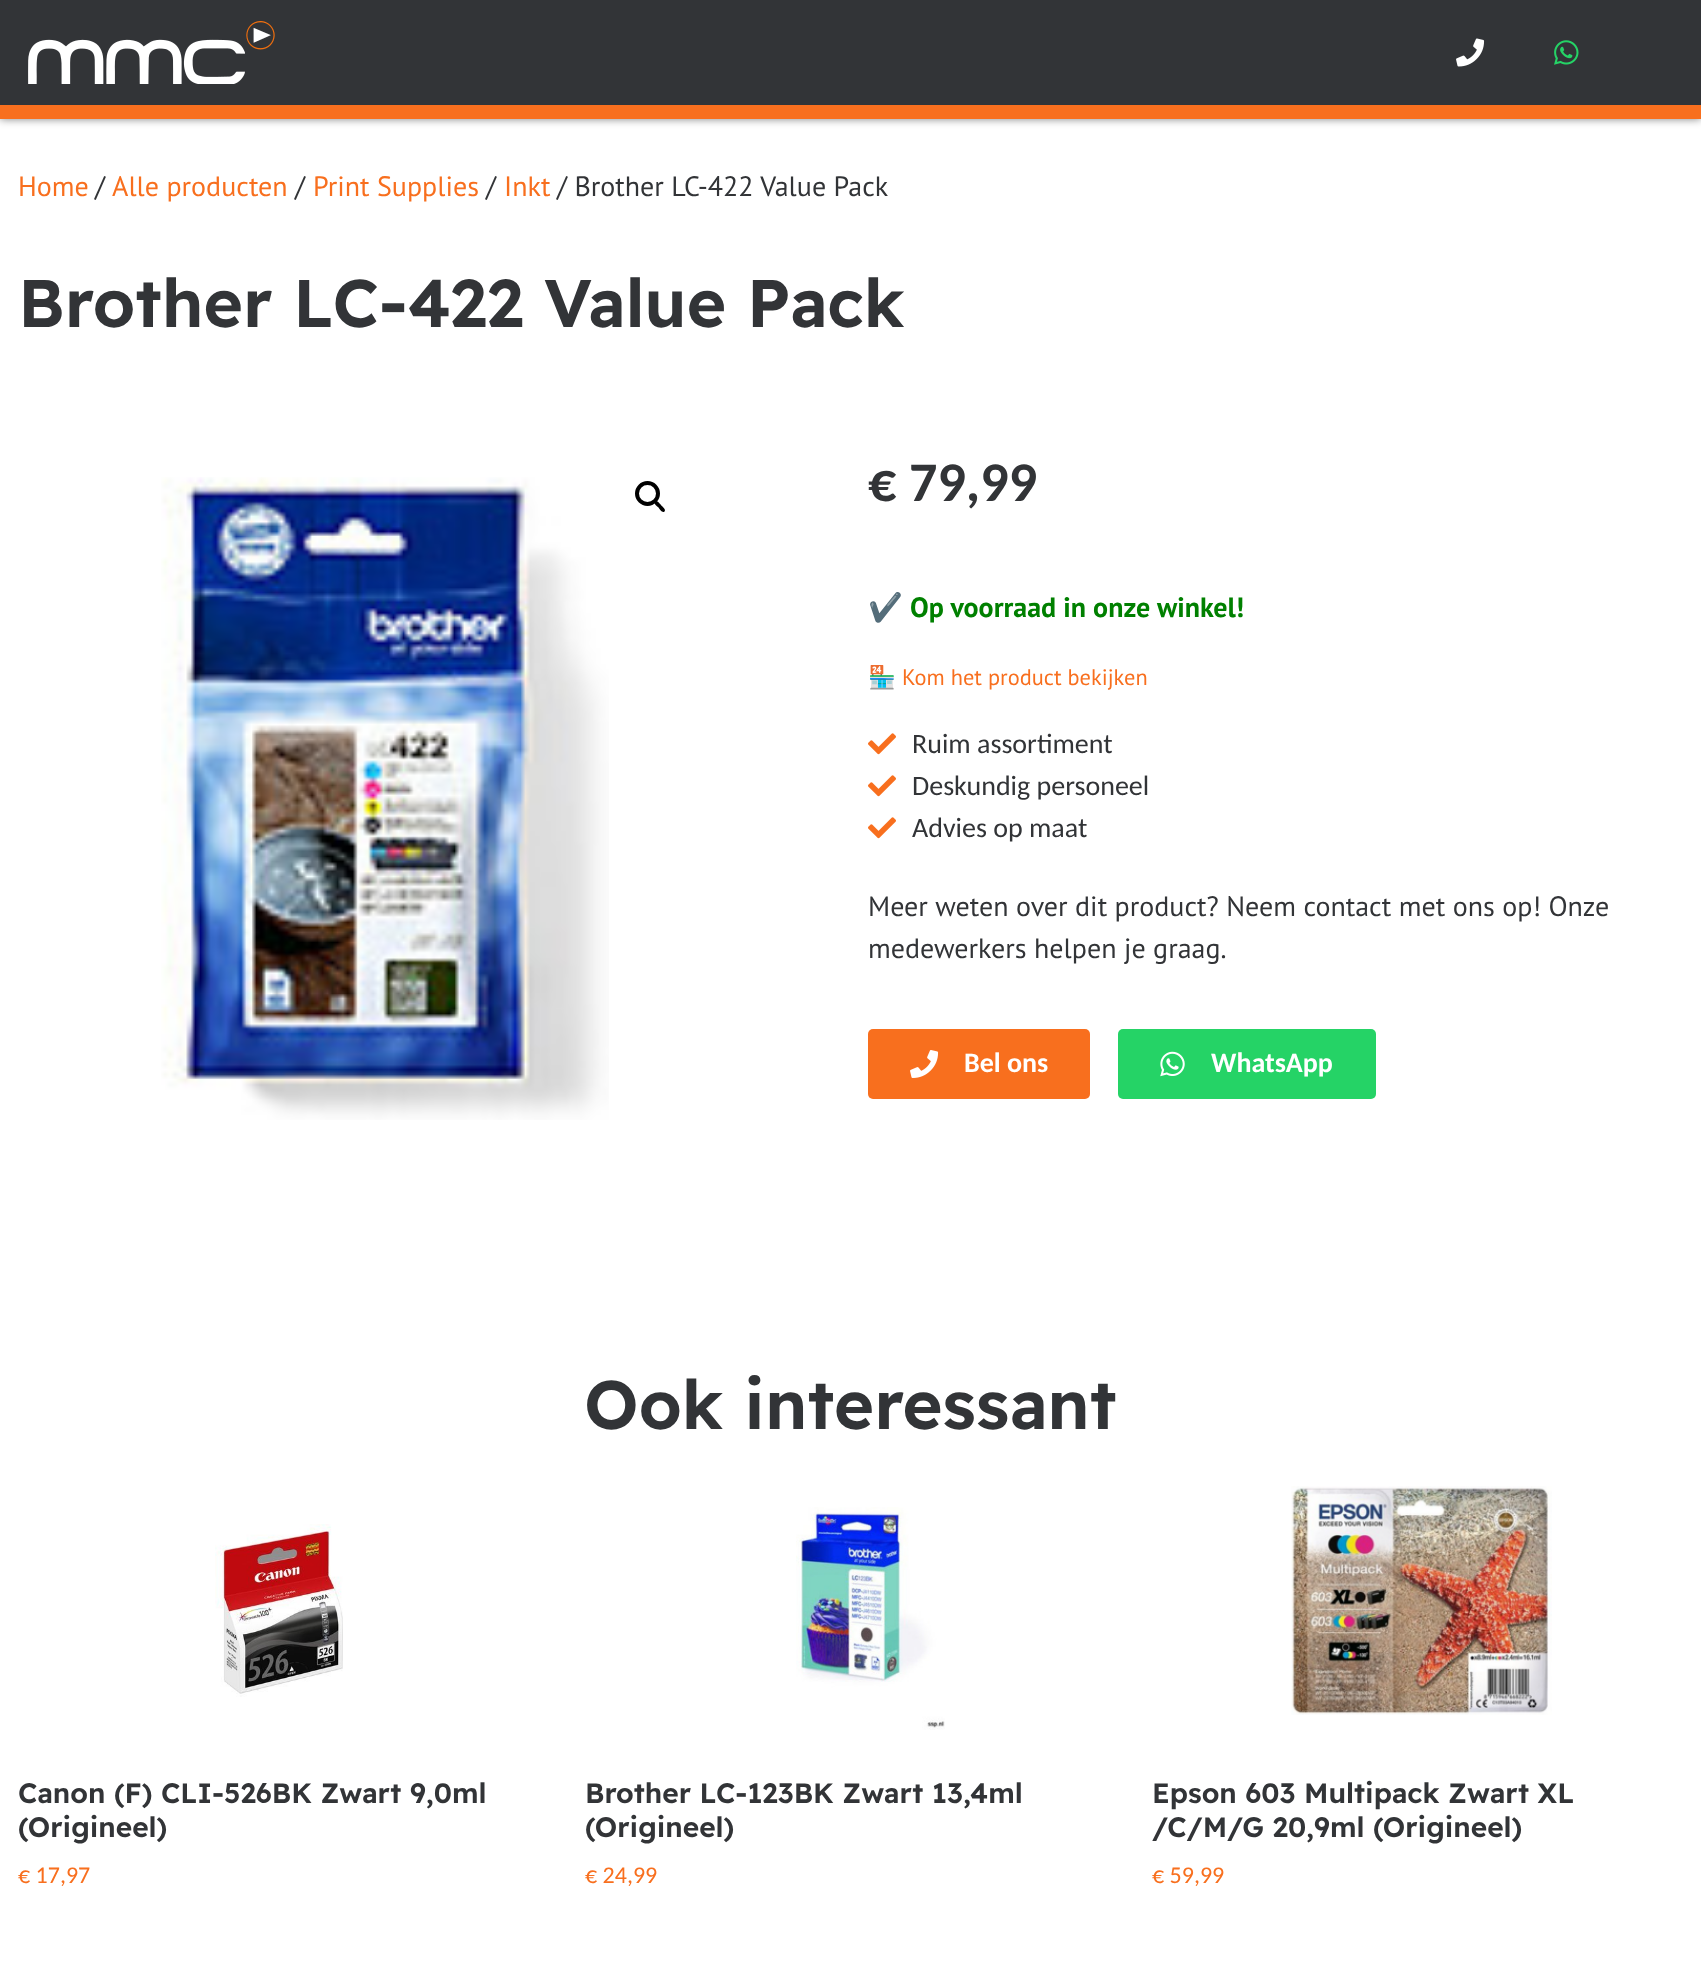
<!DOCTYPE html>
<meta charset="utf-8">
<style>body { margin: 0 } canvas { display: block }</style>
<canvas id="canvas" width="1701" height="1979"></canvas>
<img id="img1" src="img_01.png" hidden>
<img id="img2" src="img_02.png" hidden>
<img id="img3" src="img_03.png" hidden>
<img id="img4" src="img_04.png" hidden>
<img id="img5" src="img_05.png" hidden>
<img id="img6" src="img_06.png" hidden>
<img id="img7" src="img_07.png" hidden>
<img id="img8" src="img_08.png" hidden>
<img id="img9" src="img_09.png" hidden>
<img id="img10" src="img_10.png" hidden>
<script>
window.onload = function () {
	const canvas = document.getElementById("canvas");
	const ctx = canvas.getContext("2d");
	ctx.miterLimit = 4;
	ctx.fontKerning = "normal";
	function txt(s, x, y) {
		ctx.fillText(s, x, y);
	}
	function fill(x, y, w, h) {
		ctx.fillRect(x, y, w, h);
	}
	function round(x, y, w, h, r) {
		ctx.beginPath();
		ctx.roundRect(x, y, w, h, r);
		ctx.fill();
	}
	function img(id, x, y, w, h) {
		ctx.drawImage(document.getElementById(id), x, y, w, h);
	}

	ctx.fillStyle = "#FFFFFF";
	fill(0, 0, 1701, 1979);
	ctx.fillStyle = "rgba(0, 0, 0, 0.5)";
	ctx.filter = "blur(4.5px)";
	ctx.beginPath();
	ctx.rect(0, 0, 1701, 119);
	ctx.fill();
	ctx.filter = "none";
	ctx.fillStyle = "#323437";
	fill(0, 0, 1701, 105);
	ctx.fillStyle = "#F86F1E";
	fill(0, 105, 1701, 14);
	img("img1", 28, 21, 247, 63);
	img("img2", 1456, 38, 29, 29);
	img("img3", 1554, 40, 25, 25);
	img("img4", 161, 477, 448, 643);
	ctx.beginPath();
	ctx.arc(647.5, 493.5, 10.5, 0, Math.PI * 2);
	ctx.strokeStyle = "#000000";
	ctx.lineWidth = 4;
	ctx.stroke();
	ctx.fillStyle = "#000000";
	ctx.beginPath();
	ctx.moveTo(655, 501.5);
	ctx.bezierCurveTo(657, 499.5, 660, 504, 661, 505);
	ctx.bezierCurveTo(662, 506.5, 666.5, 509.5, 664.5, 511.5);
	ctx.bezierCurveTo(662.5, 513.5, 659.5, 509, 658.5, 507.5);
	ctx.bezierCurveTo(657.5, 506.5, 653, 503.5, 655, 501.5);
	ctx.closePath();
	ctx.fill();
	img("img5", 868, 733, 28, 22);
	img("img5", 868, 775, 28, 22);
	img("img5", 868, 817, 28, 22);
	ctx.fillStyle = "#F86F1E";
	round(868, 1029, 222, 70, 5);
	img("img6", 910, 1050, 29, 28);
	ctx.fillStyle = "#25D366";
	round(1118, 1029, 258, 70, 5);
	img("img7", 1160, 1051, 25, 26);
	img("img8", 215, 1524, 128, 173);
	img("img9", 796, 1507, 149, 223);
	img("img10", 1291, 1486, 261, 229);
	ctx.font = "28px PT Sans";
	ctx.fillStyle = "#F86F1E";
	txt("Home", 18, 196);
	ctx.fillStyle = "#323437";
	txt("/", 95, 196);
	ctx.fillStyle = "#F86F1E";
	txt("Alle producten", 112, 196);
	ctx.fillStyle = "#323437";
	txt("/", 295, 196);
	ctx.fillStyle = "#F86F1E";
	txt("Print Supplies", 313, 196);
	ctx.fillStyle = "#323437";
	txt("/", 486, 196);
	ctx.fillStyle = "#F86F1E";
	txt("Inkt", 504, 196);
	ctx.fillStyle = "#323437";
	txt("/ Brother LC-422 Value Pack", 557, 196);
	ctx.font = "600 67.25px Readex Pro";
	txt("Brother LC-422 Value Pack", 18, 327);
	ctx.font = "bold 56px Carlito";
	txt("€ 79,99", 868, 501);
	ctx.font = "bold 28px Noto Color Emoji";
	ctx.fillStyle = "#008000";
	txt("✔️", 868, 617);
	ctx.font = "bold 28px PT Sans";
	txt("Op voorraad in onze winkel!", 910, 617);
	ctx.font = "22.4px Noto Color Emoji";
	ctx.fillStyle = "#F86F1E";
	txt("🏪", 868, 685);
	ctx.font = "22.4px PT Sans";
	txt("Kom het product bekijken", 902, 685);
	ctx.font = "28px Carlito";
	ctx.fillStyle = "#323437";
	txt("Ruim assortiment", 912, 753);
	txt("Deskundig personeel", 912, 795);
	txt("Advies op maat", 912, 837);
	ctx.font = "28px PT Sans";
	txt("Meer weten over dit product? Neem contact met ons op! Onze", 868, 916);
	txt("medewerkers helpen je graag.", 868, 958);
	ctx.font = "bold 28px Carlito";
	ctx.fillStyle = "#FFFFFF";
	txt("Bel ons", 964, 1072);
	txt("WhatsApp", 1211, 1072);
	ctx.font = "600 68.25px Readex Pro";
	ctx.fillStyle = "#323437";
	txt("Ook interessant", 584, 1429);
	ctx.font = "600 28px Readex Pro";
	txt("Canon (F) CLI-526BK Zwart 9,0ml", 18, 1803);
	txt("(Origineel)", 18, 1837);
	ctx.font = "24px Carlito";
	ctx.fillStyle = "#F86F1E";
	txt("€ 17,97", 18, 1883);
	ctx.font = "600 28px Readex Pro";
	ctx.fillStyle = "#323437";
	txt("Brother LC-123BK Zwart 13,4ml", 585, 1803);
	txt("(Origineel)", 585, 1837);
	ctx.font = "24px Carlito";
	ctx.fillStyle = "#F86F1E";
	txt("€ 24,99", 585, 1883);
	ctx.font = "600 28px Readex Pro";
	ctx.fillStyle = "#323437";
	txt("Epson 603 Multipack Zwart XL", 1152, 1803);
	txt("/C/M/G 20,9ml (Origineel)", 1152, 1837);
	ctx.font = "24px Carlito";
	ctx.fillStyle = "#F86F1E";
	txt("€ 59,99", 1152, 1883);
};
</script>
